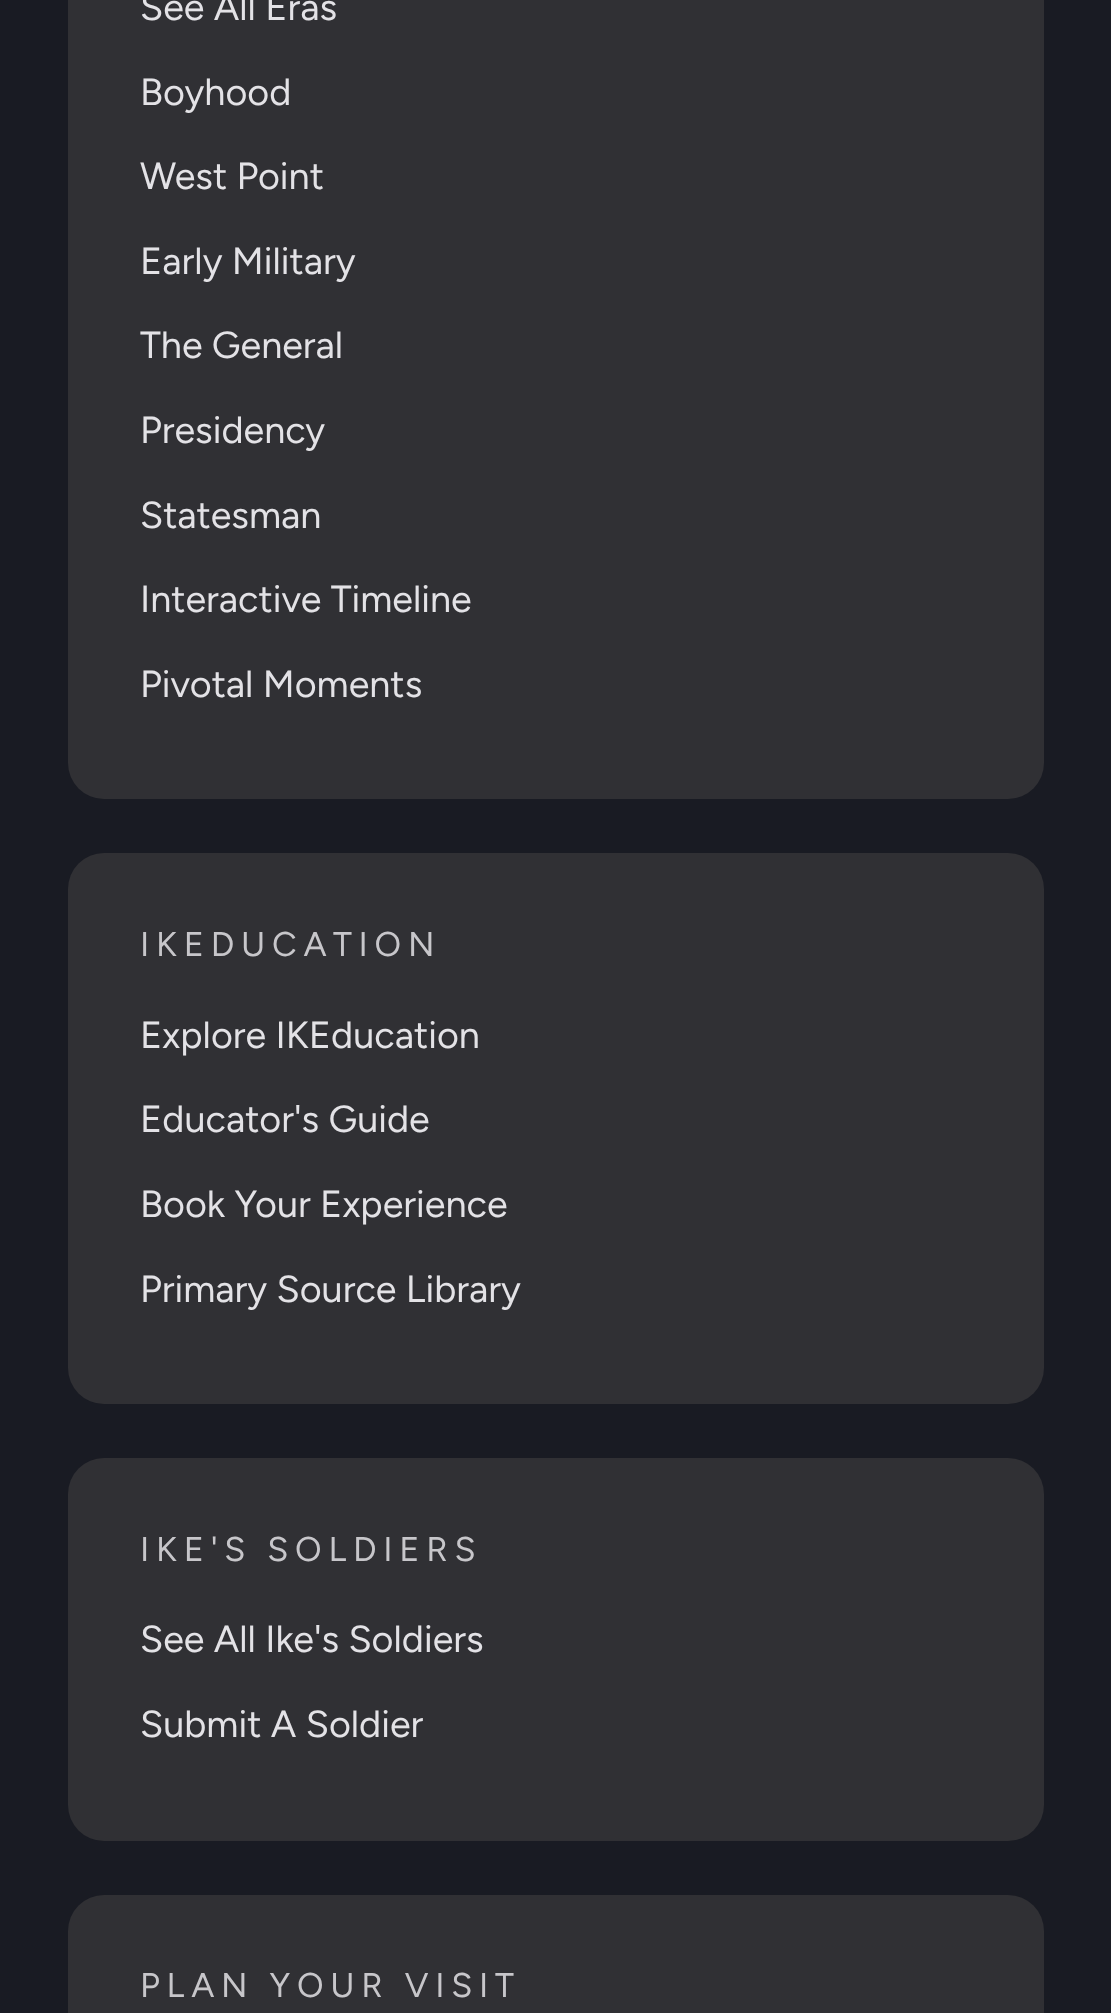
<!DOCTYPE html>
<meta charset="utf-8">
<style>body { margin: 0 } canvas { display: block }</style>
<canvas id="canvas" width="1111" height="2013"></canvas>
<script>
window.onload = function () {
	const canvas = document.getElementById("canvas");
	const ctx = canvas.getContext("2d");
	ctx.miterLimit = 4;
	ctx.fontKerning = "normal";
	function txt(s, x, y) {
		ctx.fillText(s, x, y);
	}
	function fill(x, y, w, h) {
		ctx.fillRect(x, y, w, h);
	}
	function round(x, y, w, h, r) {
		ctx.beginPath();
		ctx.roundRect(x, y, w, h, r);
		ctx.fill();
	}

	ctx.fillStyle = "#191B23";
	fill(0, 0, 1111, 2013);
	ctx.fillStyle = "#303034";
	round(68, -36, 976, 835, 36);
	round(68, 853, 976, 551, 36);
	round(68, 1458, 976, 383, 36);
	round(68, 1895, 976, 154, 36);
	ctx.font = "37.75px Figtree";
	ctx.fillStyle = "#E3E2E6";
	txt("See All Eras", 140, 20);
	txt("Boyhood", 140, 105);
	txt("West Point", 140, 189);
	txt("Early Military", 140, 274);
	txt("The General", 140, 358);
	txt("Presidency", 140, 443);
	txt("Statesman", 140, 528);
	txt("Interactive Timeline", 140, 612);
	txt("Pivotal Moments", 140, 697);
	ctx.letterSpacing = "6.75px";
	ctx.font = "34.25px Figtree";
	ctx.fillStyle = "#C7C6CA";
	txt("IKEDUCATION", 140, 956);
	ctx.letterSpacing = "0px";
	ctx.font = "37.75px Figtree";
	ctx.fillStyle = "#E3E2E6";
	txt("Explore IKEducation", 140, 1048);
	txt("Educator's Guide", 140, 1132);
	txt("Book Your Experience", 140, 1217);
	txt("Primary Source Library", 140, 1302);
	ctx.letterSpacing = "6.75px";
	ctx.font = "34.25px Figtree";
	ctx.fillStyle = "#C7C6CA";
	txt("IKE'S SOLDIERS", 140, 1561);
	ctx.letterSpacing = "0px";
	ctx.font = "37.75px Figtree";
	ctx.fillStyle = "#E3E2E6";
	txt("See All Ike's Soldiers", 140, 1652);
	txt("Submit A Soldier", 140, 1737);
	ctx.letterSpacing = "6.75px";
	ctx.font = "34.25px Figtree";
	ctx.fillStyle = "#C7C6CA";
	txt("PLAN YOUR VISIT", 140, 1997);
};
</script>
